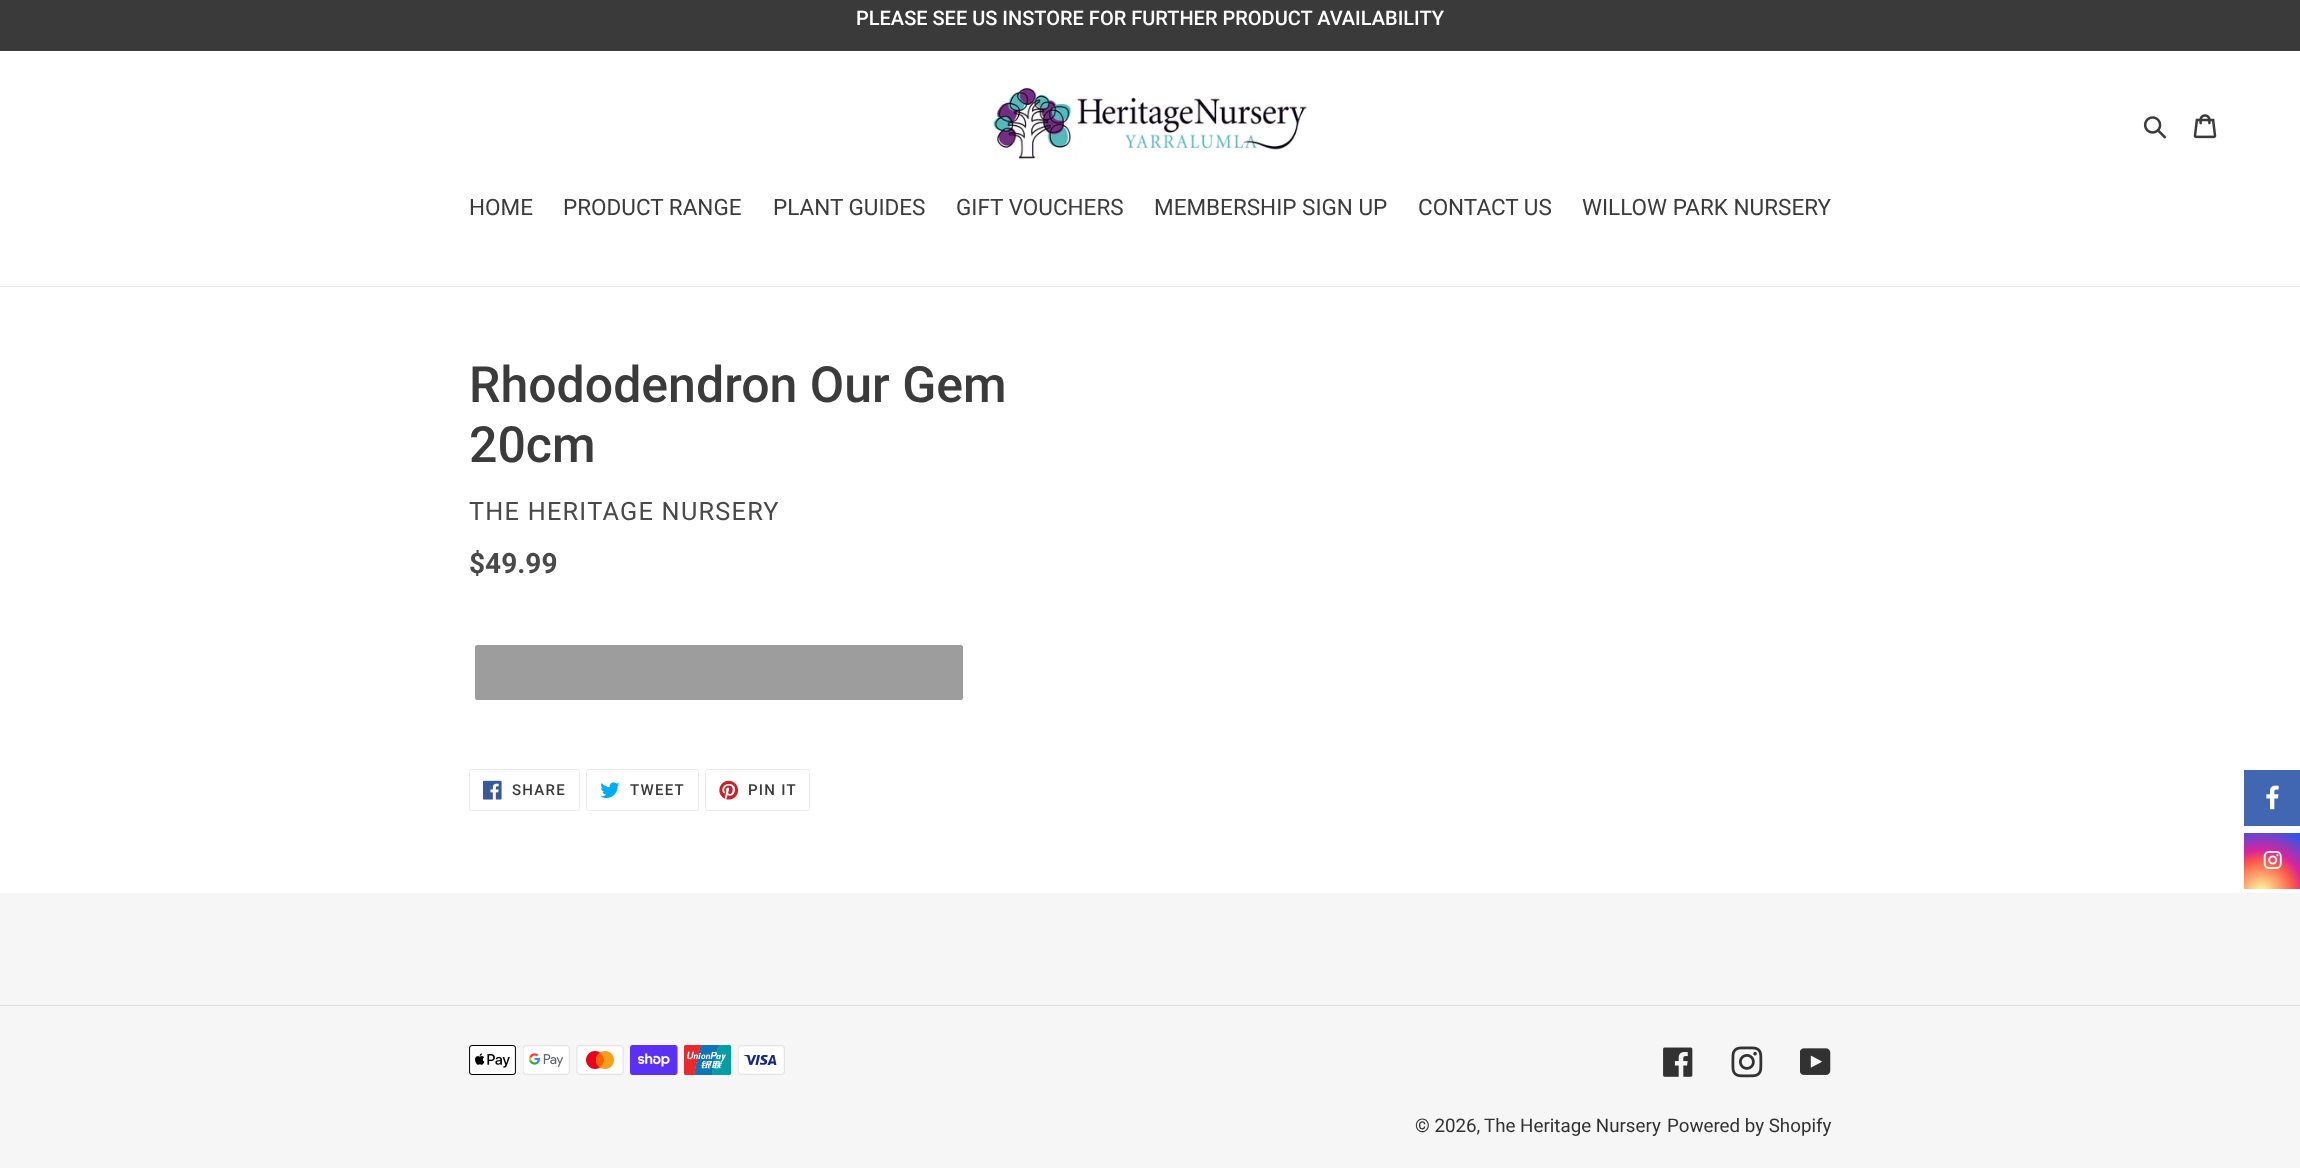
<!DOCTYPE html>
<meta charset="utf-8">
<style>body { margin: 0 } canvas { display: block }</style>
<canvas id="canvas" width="2300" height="1168"></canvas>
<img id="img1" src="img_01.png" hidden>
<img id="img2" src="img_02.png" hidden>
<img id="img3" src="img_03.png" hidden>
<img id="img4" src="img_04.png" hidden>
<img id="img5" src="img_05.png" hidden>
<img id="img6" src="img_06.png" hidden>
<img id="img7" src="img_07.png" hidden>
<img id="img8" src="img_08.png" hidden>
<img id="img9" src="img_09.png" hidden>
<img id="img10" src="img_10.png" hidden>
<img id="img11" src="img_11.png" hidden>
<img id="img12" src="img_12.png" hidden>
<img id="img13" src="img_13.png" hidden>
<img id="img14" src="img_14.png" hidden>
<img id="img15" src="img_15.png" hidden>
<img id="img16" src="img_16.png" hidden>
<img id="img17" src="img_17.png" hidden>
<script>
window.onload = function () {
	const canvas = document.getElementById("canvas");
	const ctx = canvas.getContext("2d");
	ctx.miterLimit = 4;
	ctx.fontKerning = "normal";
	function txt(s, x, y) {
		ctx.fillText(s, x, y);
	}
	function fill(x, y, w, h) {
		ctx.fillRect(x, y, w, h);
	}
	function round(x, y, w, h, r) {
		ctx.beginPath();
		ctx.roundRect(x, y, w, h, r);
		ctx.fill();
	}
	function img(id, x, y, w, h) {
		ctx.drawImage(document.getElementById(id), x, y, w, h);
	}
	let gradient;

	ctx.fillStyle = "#FFFFFF";
	fill(0, 0, 2300, 1168);
	ctx.fillStyle = "#3A3A3A";
	fill(0, 0, 2300, 51);
	img("img1", 993, 88, 314, 71);
	img("img2", 2143, 116, 23, 23);
	img("img3", 2193, 114, 24, 25);
	ctx.fillStyle = "#EBEBEB";
	fill(0, 286, 2300, 1);
	ctx.fillStyle = "#9D9D9D";
	round(475, 645, 488, 55, 2.5);
	ctx.beginPath();
	ctx.roundRect(469.5, 769.5, 110, 41, 2);
	ctx.strokeStyle = "#EBEBEB";
	ctx.stroke();
	img("img4", 483, 780, 19, 20);
	ctx.beginPath();
	ctx.roundRect(586.5, 769.5, 112, 41, 2);
	ctx.stroke();
	img("img5", 600, 782, 20, 16);
	ctx.beginPath();
	ctx.roundRect(705.5, 769.5, 104, 41, 2);
	ctx.stroke();
	img("img6", 719, 780, 20, 20);
	ctx.fillStyle = "#F6F6F6";
	fill(0, 893, 2300, 275);
	ctx.fillStyle = "#DDDDDD";
	fill(0, 1005, 2300, 1);
	img("img7", 469, 1045, 47, 30);
	img("img8", 523, 1045, 47, 30);
	img("img9", 576, 1045, 48, 30);
	img("img10", 630, 1045, 48, 30);
	img("img11", 684, 1045, 47, 30);
	img("img12", 738, 1045, 47, 30);
	img("img13", 1663, 1047, 30, 30);
	img("img14", 1731, 1046, 32, 32);
	img("img15", 1800, 1048, 31, 27);
	ctx.fillStyle = "#4267B2";
	fill(2244, 770, 56, 56);
	img("img16", 2266, 785, 13, 25);
	gradient = ctx.createRadialGradient(2261, 893, 0, 2261, 893, 72);
	gradient.addColorStop(0, "#FDF497");
	gradient.addColorStop(0.05, "#FDF497");
	gradient.addColorStop(0.45, "#FD5949");
	gradient.addColorStop(0.6, "#D6249F");
	gradient.addColorStop(0.95, "#285AEB");
	ctx.fillStyle = gradient;
	fill(2244, 833, 56, 56);
	img("img17", 2263, 851, 19, 18);
	ctx.font = "500 20px Roboto";
	ctx.fillStyle = "#FFFFFF";
	txt("PLEASE SEE US INSTORE FOR FURTHER PRODUCT AVAILABILITY", 856, 25);
	ctx.font = "22.5px Roboto";
	ctx.fillStyle = "#3B3B3B";
	txt("HOME", 469, 215);
	txt("PRODUCT RANGE", 563, 215);
	txt("PLANT GUIDES", 773, 215);
	txt("GIFT VOUCHERS", 956, 215);
	txt("MEMBERSHIP SIGN UP", 1154, 215);
	txt("CONTACT US", 1418, 215);
	txt("WILLOW PARK NURSERY", 1582, 215);
	ctx.font = "500 50px Roboto";
	txt("Rhododendron Our Gem", 469, 402);
	txt("20cm", 469, 462);
	ctx.letterSpacing = "1.25px";
	ctx.font = "25.25px Roboto";
	ctx.fillStyle = "#494949";
	txt("THE HERITAGE NURSERY", 469, 520);
	ctx.letterSpacing = "0px";
	ctx.font = "bold 28px Roboto";
	txt("$49.99", 469, 573);
	ctx.letterSpacing = "1.25px";
	ctx.font = "500 15px Roboto";
	ctx.fillStyle = "#3B3B3B";
	txt("SHARE", 512, 795);
	txt("TWEET", 630, 795);
	txt("PIN IT", 748, 795);
	ctx.letterSpacing = "0px";
	ctx.font = "18.75px Roboto";
	ctx.fillStyle = "#333232";
	txt("© 2026,", 1415, 1132);
	txt("The Heritage Nursery", 1484, 1132);
	txt("Powered by Shopify", 1667, 1132);
};
</script>
